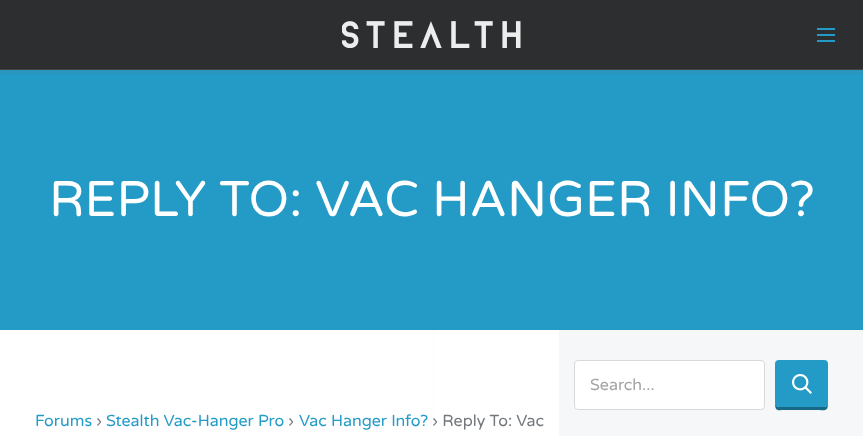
<!DOCTYPE html>
<meta charset="utf-8">
<style>body { margin: 0 } canvas { display: block }</style>
<canvas id="canvas" width="863" height="436"></canvas>
<img id="img1" src="img_01.png" hidden>
<img id="img2" src="img_02.png" hidden>
<script>
window.onload = function () {
	const canvas = document.getElementById("canvas");
	const ctx = canvas.getContext("2d");
	ctx.miterLimit = 4;
	ctx.fontKerning = "normal";
	function txt(s, x, y) {
		ctx.fillText(s, x, y);
	}
	function fill(x, y, w, h) {
		ctx.fillRect(x, y, w, h);
	}
	function round(x, y, w, h, r) {
		ctx.beginPath();
		ctx.roundRect(x, y, w, h, r);
		ctx.fill();
	}
	function img(id, x, y, w, h) {
		ctx.drawImage(document.getElementById(id), x, y, w, h);
	}
	let gradient;

	ctx.fillStyle = "#249BC6";
	fill(0, 0, 863, 436);
	ctx.fillStyle = "#2996BE";
	fill(0, 70, 863, 4);
	ctx.fillStyle = "#2C2E2F";
	fill(0, 0, 863, 69);
	ctx.fillStyle = "#414344";
	fill(0, 69, 863, 1);
	img("img1", 342, 21, 179, 27);
	ctx.fillStyle = "#249BC6";
	fill(817, 34, 18, 2);
	fill(817, 28, 18, 2);
	fill(817, 40, 18, 2);
	gradient = ctx.createLinearGradient(0, 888, 863, 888);
	gradient.addColorStop(0.01, "#FFFFFF");
	gradient.addColorStop(0.5, "#FFFFFF");
	gradient.addColorStop(0.51, "#F6F7F8");
	gradient.addColorStop(1, "#F6F7F8");
	ctx.fillStyle = gradient;
	fill(0, 330, 863, 106);
	ctx.fillStyle = "#FFFFFF";
	ctx.beginPath();
	ctx.roundRect(574.5, 360.5, 190, 49, 3.5);
	ctx.fill();
	ctx.strokeStyle = "#D9D9D9";
	ctx.stroke();
	ctx.fillStyle = "#186986";
	ctx.beginPath();
	ctx.moveTo(775, 403);
	ctx.bezierCurveTo(775, 412, 778, 410, 786, 410);
	ctx.lineTo(816, 410);
	ctx.bezierCurveTo(825, 410, 828, 412, 828, 403);
	ctx.bezierCurveTo(828, 405, 826, 407, 824, 407);
	ctx.lineTo(779, 407);
	ctx.bezierCurveTo(777, 407, 775, 405, 775, 403);
	ctx.closePath();
	ctx.fill();
	ctx.fillStyle = "#249BC6";
	round(775, 360, 53, 47, 4);
	img("img2", 792, 374, 20, 20);
	ctx.fillStyle = "#FFFFFF";
	fill(434, 330, 125, 106);
	ctx.font = "50px Varela Round";
	txt("REPLY TO: VAC HANGER INFO?", 49, 216);
	ctx.font = "16px Varela Round";
	ctx.fillStyle = "#A3A3A3";
	txt("Search...", 590, 390);
	ctx.fillStyle = "#249BC6";
	txt("Forums", 35, 426);
	ctx.fillStyle = "#73787C";
	txt("›", 96, 426);
	ctx.fillStyle = "#249BC6";
	txt("Stealth Vac-Hanger Pro", 106, 426);
	ctx.fillStyle = "#73787C";
	txt("›", 288, 426);
	ctx.fillStyle = "#249BC6";
	txt("Vac Hanger Info?", 299, 426);
	ctx.fillStyle = "#73787C";
	txt("› Reply To: Vac", 432, 426);
};
</script>
